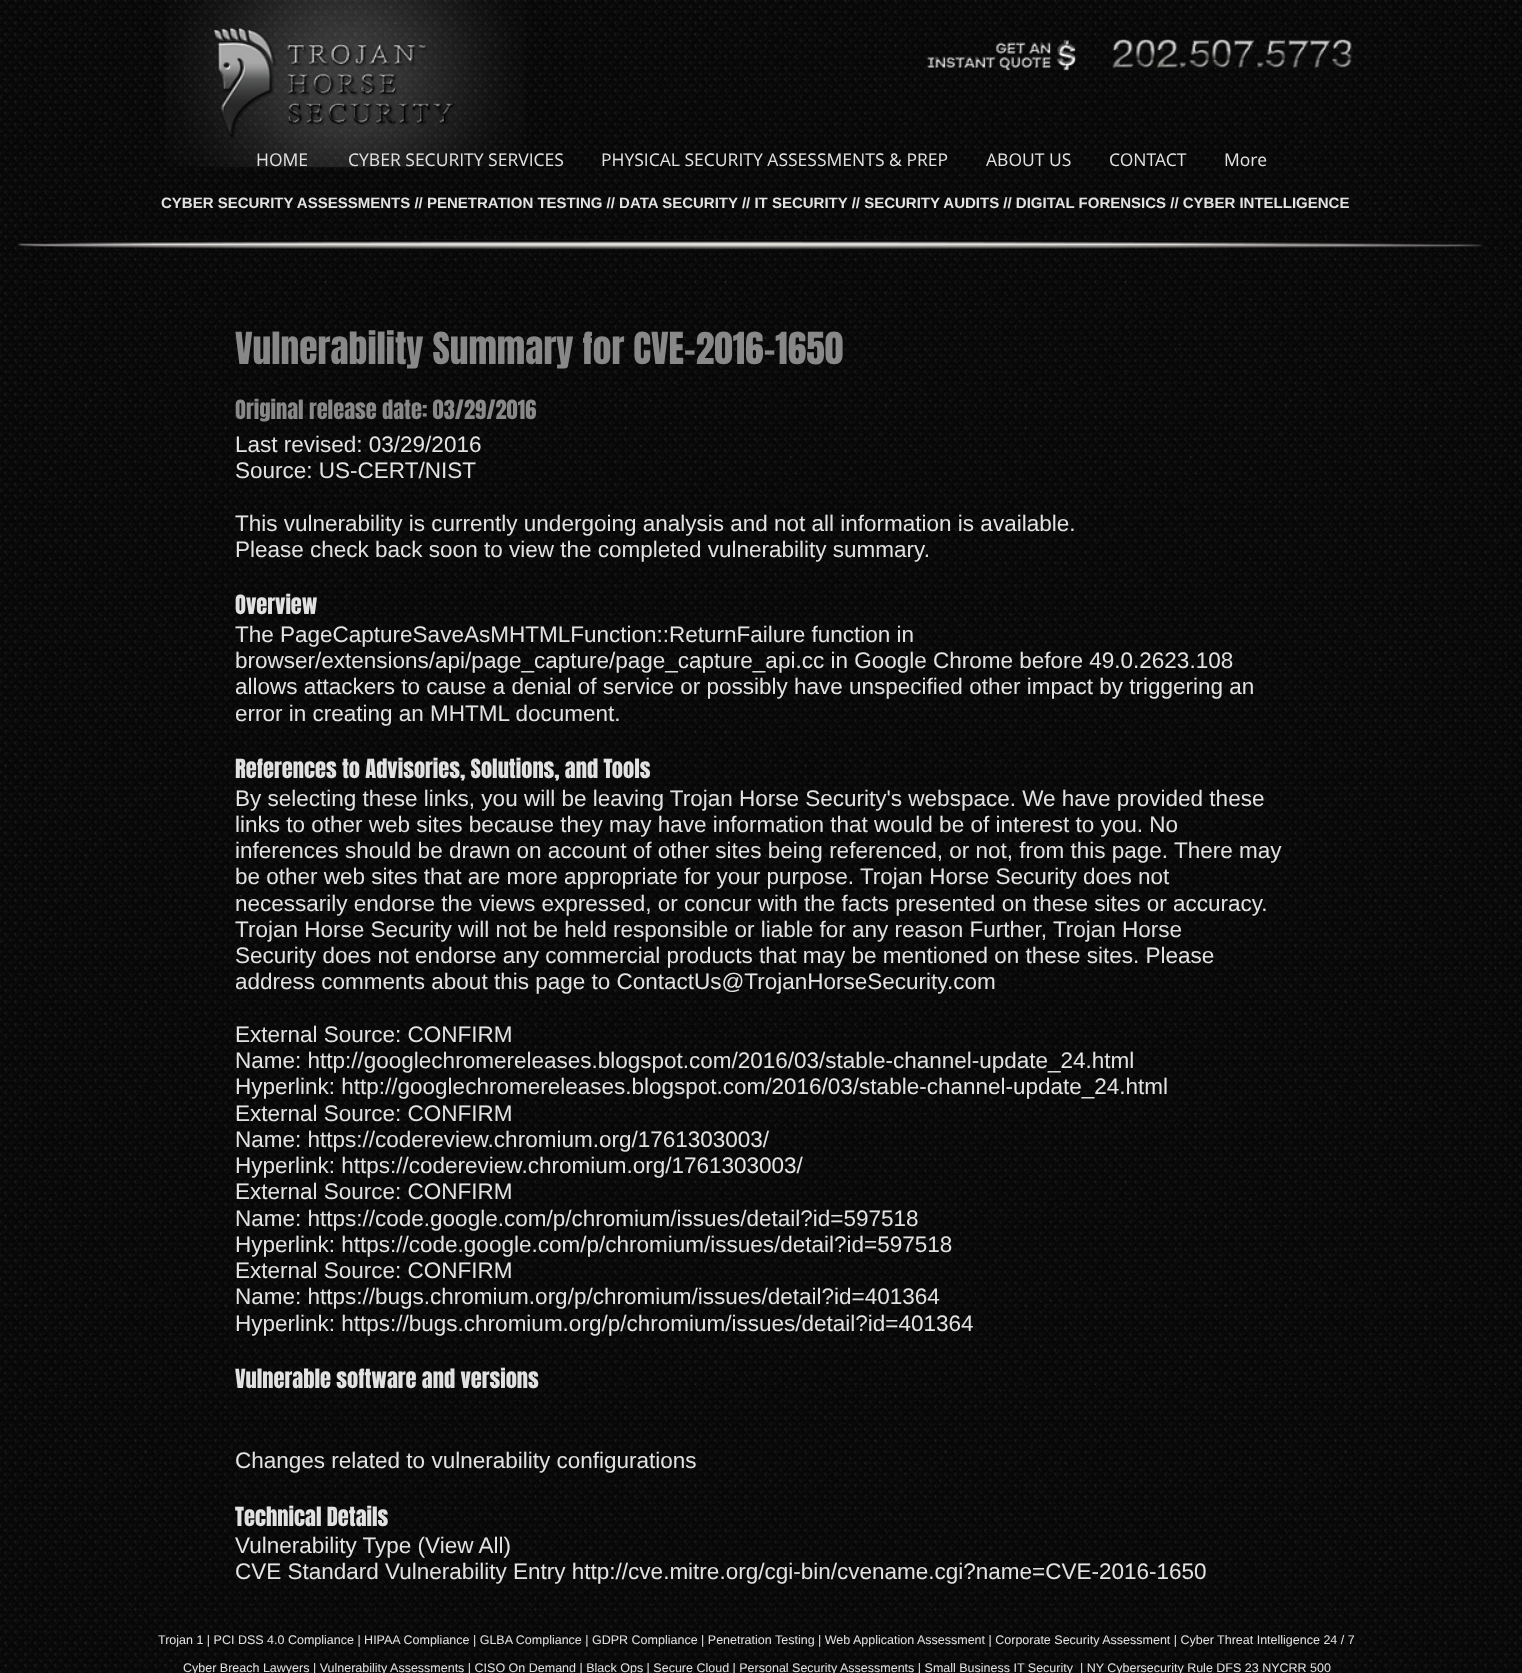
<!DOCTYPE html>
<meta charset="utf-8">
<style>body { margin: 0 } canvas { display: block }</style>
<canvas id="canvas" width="1522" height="1673"></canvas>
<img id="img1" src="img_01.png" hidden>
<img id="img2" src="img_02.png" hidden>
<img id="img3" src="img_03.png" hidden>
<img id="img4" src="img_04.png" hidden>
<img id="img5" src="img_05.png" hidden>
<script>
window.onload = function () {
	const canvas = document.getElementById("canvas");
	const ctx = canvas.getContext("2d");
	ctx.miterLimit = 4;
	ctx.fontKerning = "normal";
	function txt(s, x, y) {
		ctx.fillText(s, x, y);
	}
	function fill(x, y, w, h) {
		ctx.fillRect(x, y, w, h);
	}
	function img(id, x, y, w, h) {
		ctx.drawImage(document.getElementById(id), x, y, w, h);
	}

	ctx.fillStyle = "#FFFFFF";
	fill(0, 0, 1522, 1673);
	img("img1", 0, 0, 1522, 1673);
	img("img2", 166, 0, 359, 168);
	img("img3", 927, 39, 150, 32);
	img("img4", 1112, 39, 242, 31);
	img("img5", 17, 239, 1467, 12);
	ctx.font = "17.5px Open Sans";
	ctx.fillStyle = "#E2E2E2";
	txt("HOME", 256, 166);
	txt("CYBER SECURITY SERVICES", 348, 166);
	txt("PHYSICAL SECURITY ASSESSMENTS & PREP", 601, 166);
	txt("ABOUT US", 986, 166);
	txt("CONTACT", 1109, 166);
	txt("More", 1224, 166);
	ctx.font = "bold 15px Liberation Sans";
	txt("CYBER SECURITY ASSESSMENTS // PENETRATION TESTING // DATA SECURITY // IT SECURITY // SECURITY AUDITS // DIGITAL FORENSICS // CYBER INTELLIGENCE", 161, 208);
	ctx.font = "37.5px Anton";
	ctx.fillStyle = "#888888";
	txt("Vulnerability Summary for CVE-2016-1650", 235, 364);
	ctx.font = "22.5px Anton";
	txt("Original release date: 03/29/2016", 235, 419);
	ctx.font = "22.5px Liberation Sans";
	ctx.fillStyle = "#E2E2E2";
	txt("Last revised: 03/29/2016", 235, 452);
	txt("Source: US-CERT/NIST", 235, 478);
	txt("This vulnerability is currently undergoing analysis and not all information is available.", 235, 531);
	txt("Please check back soon to view the completed vulnerability summary.", 235, 557);
	ctx.font = "22.5px Anton";
	txt("Overview", 235, 614);
	ctx.font = "22.5px Liberation Sans";
	txt("The PageCaptureSaveAsMHTMLFunction::ReturnFailure function in", 235, 642);
	txt("browser/extensions/api/page_capture/page_capture_api.cc in Google Chrome before 49.0.2623.108", 235, 668);
	txt("allows attackers to cause a denial of service or possibly have unspecified other impact by triggering an", 235, 694);
	txt("error in creating an MHTML document.", 235, 721);
	ctx.font = "22.5px Anton";
	txt("References to Advisories, Solutions, and Tools", 235, 778);
	ctx.font = "22.5px Liberation Sans";
	txt("By selecting these links, you will be leaving Trojan Horse Security's webspace. We have provided these", 235, 806);
	txt("links to other web sites because they may have information that would be of interest to you. No", 235, 832);
	txt("inferences should be drawn on account of other sites being referenced, or not, from this page. There may", 235, 858);
	txt("be other web sites that are more appropriate for your purpose. Trojan Horse Security does not", 235, 884);
	txt("necessarily endorse the views expressed, or concur with the facts presented on these sites or accuracy.", 235, 911);
	txt("Trojan Horse Security will not be held responsible or liable for any reason Further, Trojan Horse", 235, 937);
	txt("Security does not endorse any commercial products that may be mentioned on these sites. Please", 235, 963);
	txt("address comments about this page to ContactUs@TrojanHorseSecurity.com", 235, 989);
	txt("External Source: CONFIRM", 235, 1042);
	txt("Name: http://googlechromereleases.blogspot.com/2016/03/stable-channel-update_24.html", 235, 1068);
	txt("Hyperlink: http://googlechromereleases.blogspot.com/2016/03/stable-channel-update_24.html", 235, 1094);
	txt("External Source: CONFIRM", 235, 1121);
	txt("Name: https://codereview.chromium.org/1761303003/", 235, 1147);
	txt("Hyperlink: https://codereview.chromium.org/1761303003/", 235, 1173);
	txt("External Source: CONFIRM", 235, 1199);
	txt("Name: https://code.google.com/p/chromium/issues/detail?id=597518", 235, 1226);
	txt("Hyperlink: https://code.google.com/p/chromium/issues/detail?id=597518", 235, 1252);
	txt("External Source: CONFIRM", 235, 1278);
	txt("Name: https://bugs.chromium.org/p/chromium/issues/detail?id=401364", 235, 1304);
	txt("Hyperlink: https://bugs.chromium.org/p/chromium/issues/detail?id=401364", 235, 1331);
	ctx.font = "22.5px Anton";
	txt("Vulnerable software and versions", 235, 1388);
	ctx.font = "22.5px Liberation Sans";
	txt("Changes related to vulnerability configurations", 235, 1468);
	ctx.font = "22.5px Anton";
	txt("Technical Details", 235, 1526);
	ctx.font = "22.5px Liberation Sans";
	txt("Vulnerability Type (View All)", 235, 1553);
	txt("CVE Standard Vulnerability Entry http://cve.mitre.org/cgi-bin/cvename.cgi?name=CVE-2016-1650", 235, 1579);
	ctx.font = "12.5px Liberation Sans";
	txt("Trojan 1 | PCI DSS 4.0 Compliance | HIPAA Compliance | GLBA Compliance | GDPR Compliance | Penetration Testing | Web Application Assessment | Corporate Security Assessment | Cyber Threat Intelligence 24 / 7", 158, 1644);
	txt("Cyber Breach Lawyers | Vulnerability Assessments | CISO On Demand | Black Ops | Secure Cloud | Personal Security Assessments | Small Business IT Security  | NY Cybersecurity Rule DFS 23 NYCRR 500", 183, 1672);
};
</script>
